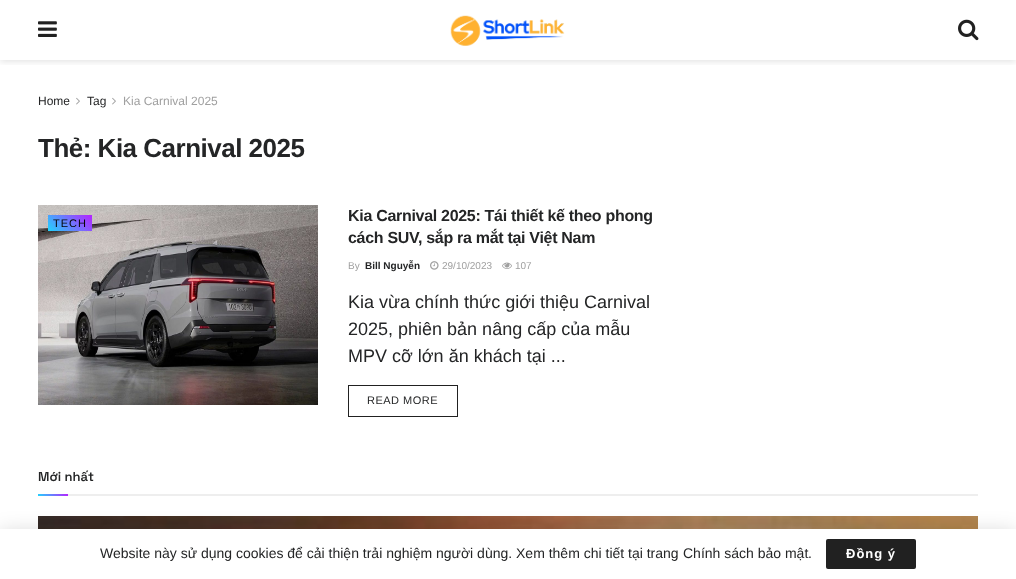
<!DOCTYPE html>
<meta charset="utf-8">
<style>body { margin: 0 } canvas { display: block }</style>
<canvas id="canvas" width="1016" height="579"></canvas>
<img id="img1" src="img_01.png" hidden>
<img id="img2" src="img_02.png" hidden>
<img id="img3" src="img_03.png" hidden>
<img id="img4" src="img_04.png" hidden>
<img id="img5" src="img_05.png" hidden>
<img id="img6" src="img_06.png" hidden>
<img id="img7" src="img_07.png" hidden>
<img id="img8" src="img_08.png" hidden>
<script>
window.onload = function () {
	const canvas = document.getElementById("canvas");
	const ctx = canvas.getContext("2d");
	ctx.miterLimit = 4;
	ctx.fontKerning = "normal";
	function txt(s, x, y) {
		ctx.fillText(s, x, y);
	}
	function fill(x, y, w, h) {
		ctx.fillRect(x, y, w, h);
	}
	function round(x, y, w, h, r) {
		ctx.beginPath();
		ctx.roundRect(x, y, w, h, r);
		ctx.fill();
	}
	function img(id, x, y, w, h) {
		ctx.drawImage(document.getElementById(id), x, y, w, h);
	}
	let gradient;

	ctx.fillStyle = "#FFFFFF";
	fill(0, 0, 1016, 579);
	ctx.save();
	ctx.beginPath();
	ctx.rect(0, 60, 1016, 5);
	ctx.clip();
	ctx.fillStyle = "rgba(0, 0, 0, 0.1)";
	ctx.filter = "blur(3px)";
	ctx.beginPath();
	ctx.rect(0, 2, 1016, 60);
	ctx.fill();
	ctx.filter = "none";
	ctx.restore();
	img("img1", 38, 21, 19, 16);
	img("img2", 450, 15, 115, 31);
	img("img3", 958, 19, 21, 22);
	img("img4", 76, 97, 4, 8);
	img("img4", 112, 97, 4, 8);
	img("img5", 38, 205, 280, 200);
	gradient = ctx.createLinearGradient(55, 238, 85, 208);
	gradient.addColorStop(0, "#21D4FD");
	gradient.addColorStop(1, "#B721FF");
	ctx.fillStyle = gradient;
	fill(48, 215, 44, 16);
	img("img6", 430, 261, 9, 9);
	img("img7", 502, 262, 10, 7);
	ctx.strokeStyle = "#212121";
	ctx.strokeRect(348.5, 385.5, 109, 31);
	ctx.fillStyle = "#EEEEEE";
	fill(68, 494, 910, 2);
	gradient = ctx.createLinearGradient(45, 503, 61, 487);
	gradient.addColorStop(0, "#21D4FD");
	gradient.addColorStop(1, "#B721FF");
	ctx.fillStyle = gradient;
	fill(38, 494, 30, 2);
	img("img8", 38, 516, 940, 13);
	ctx.fillStyle = "rgba(0, 0, 0, 0.15)";
	ctx.filter = "blur(10px)";
	ctx.beginPath();
	ctx.rect(0, 531, 1016, 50);
	ctx.fill();
	ctx.filter = "none";
	ctx.fillStyle = "rgba(0, 0, 0, 0.2)";
	ctx.filter = "blur(0.5px)";
	ctx.beginPath();
	ctx.rect(0, 529, 1016, 50);
	ctx.fill();
	ctx.filter = "none";
	ctx.fillStyle = "#FFFFFF";
	fill(0, 529, 1016, 50);
	ctx.fillStyle = "#212121";
	round(826, 539, 90, 30, 2);
	ctx.font = "12px Liberation Sans";
	ctx.fillStyle = "#242526";
	txt("Home", 38, 105);
	txt("Tag", 87, 105);
	ctx.fillStyle = "#A0A0A0";
	txt("Kia Carnival 2025", 123, 105);
	ctx.letterSpacing = "-0.5px";
	ctx.font = "bold 26px Liberation Sans";
	ctx.fillStyle = "#242526";
	txt("Thẻ: Kia Carnival 2025", 38, 157);
	ctx.letterSpacing = "1px";
	ctx.font = "11px Liberation Sans";
	ctx.fillStyle = "#040404";
	txt("TECH", 53, 227);
	ctx.letterSpacing = "-0.3px";
	ctx.font = "bold 16px Liberation Sans";
	ctx.fillStyle = "#242526";
	txt("Kia Carnival 2025: Tái thiết kế theo phong", 348, 221);
	txt("cách SUV, sắp ra mắt tại Việt Nam", 348, 243);
	ctx.letterSpacing = "0px";
	ctx.font = "10px Liberation Sans";
	ctx.fillStyle = "#A0A0A0";
	txt("By", 348, 269);
	ctx.font = "bold 10px Liberation Sans";
	ctx.fillStyle = "#242526";
	txt("Bill Nguyễn", 365, 269);
	ctx.font = "10px Liberation Sans";
	ctx.fillStyle = "#A0A0A0";
	txt("29/10/2023", 442, 269);
	txt("107", 515, 269);
	ctx.font = "18px Liberation Sans";
	ctx.fillStyle = "#242526";
	txt("Kia vừa chính thức giới thiệu Carnival", 348, 308);
	txt("2025, phiên bản nâng cấp của mẫu", 348, 335);
	txt("MPV cỡ lớn ăn khách tại ...", 348, 362);
	ctx.letterSpacing = "0.5px";
	ctx.font = "11px Liberation Sans";
	txt("READ MORE", 367, 404);
	ctx.letterSpacing = "0px";
	ctx.font = "600 13px Space Grotesk";
	txt("Mới nhất", 38, 481);
	ctx.font = "14px Liberation Sans";
	txt("Website này sử dụng cookies để cải thiện trải nghiệm người dùng. Xem thêm chi tiết tại trang", 100, 558);
	txt("Chính sách bảo mật", 683, 558);
	txt(".", 808, 558);
	ctx.letterSpacing = "1px";
	ctx.font = "bold 13px Liberation Sans";
	ctx.fillStyle = "#FFFFFF";
	txt("Đồng ý", 846, 558);
};
</script>
